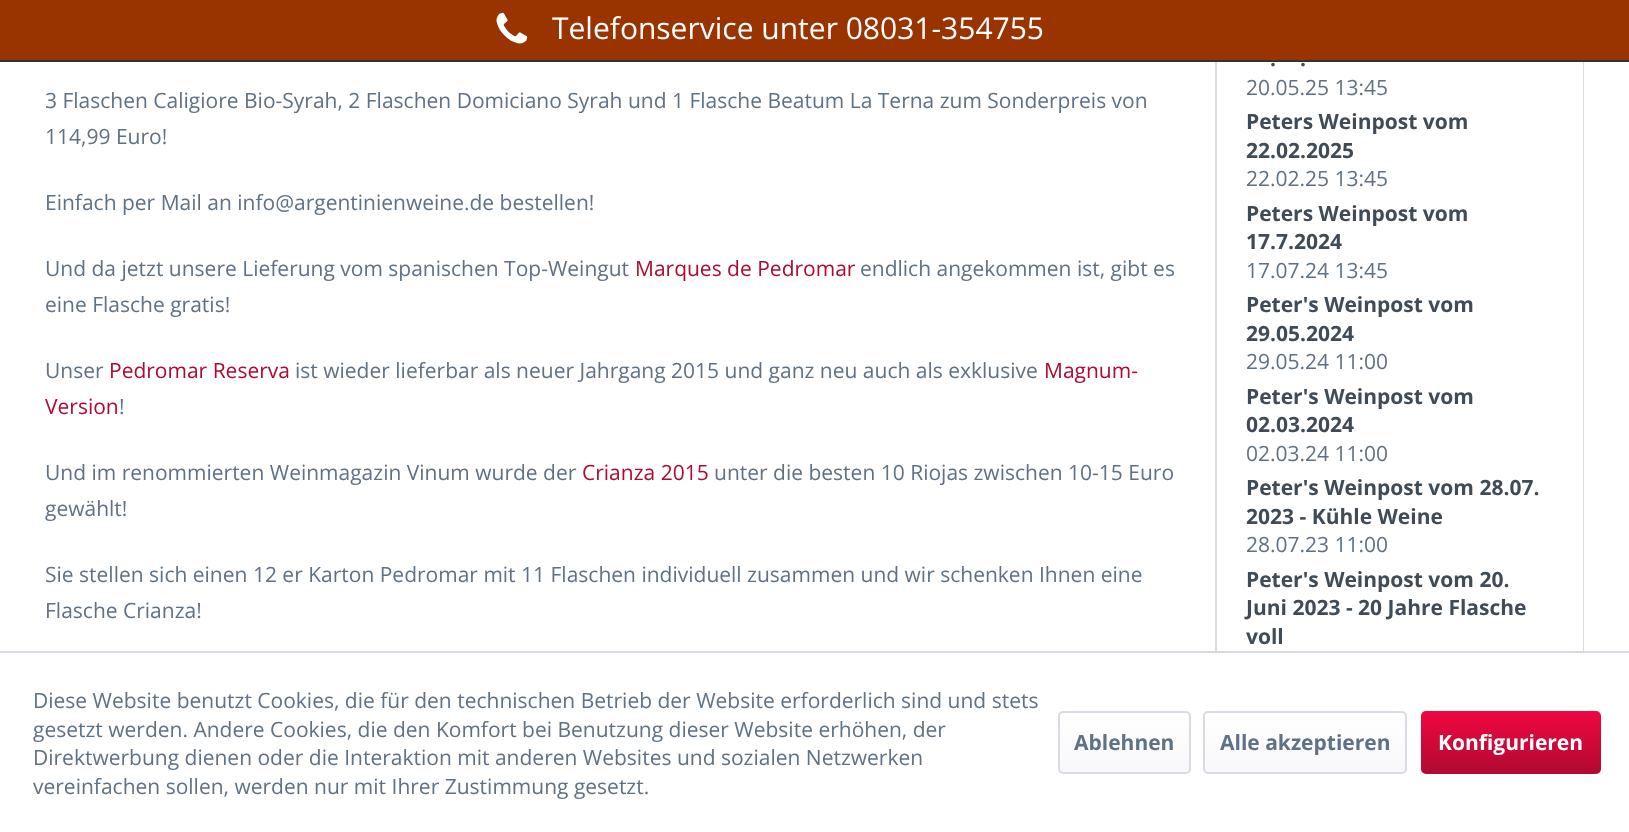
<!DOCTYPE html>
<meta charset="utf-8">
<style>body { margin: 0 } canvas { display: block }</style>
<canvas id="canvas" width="1629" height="832"></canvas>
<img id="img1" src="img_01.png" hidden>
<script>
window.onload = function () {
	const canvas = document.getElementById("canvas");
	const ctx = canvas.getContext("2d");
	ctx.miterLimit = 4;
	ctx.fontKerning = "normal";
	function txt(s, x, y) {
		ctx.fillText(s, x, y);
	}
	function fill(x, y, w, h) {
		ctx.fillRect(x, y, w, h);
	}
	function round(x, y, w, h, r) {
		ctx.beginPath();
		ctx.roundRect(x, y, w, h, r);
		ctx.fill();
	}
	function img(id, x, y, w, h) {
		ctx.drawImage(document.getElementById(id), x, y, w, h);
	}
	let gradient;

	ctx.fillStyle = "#FFFFFF";
	fill(0, 0, 1629, 832);
	ctx.strokeStyle = "#DADAE5";
	ctx.lineWidth = 2;
	ctx.strokeRect(1216, -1, 367, 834);
	ctx.fillStyle = "#993300";
	fill(0, 0, 1629, 60);
	ctx.fillStyle = "#333333";
	fill(0, 60, 1629, 2);
	img("img1", 496, 12, 32, 32);
	ctx.fillStyle = "#FFFFFF";
	fill(1582, 62, 1, 589);
	fill(1215, 653, 369, 179);
	ctx.fillStyle = "#DADAE5";
	fill(0, 651, 1629, 2);
	gradient = ctx.createLinearGradient(1124, 713, 1124, 773);
	gradient.addColorStop(0, "#FFFFFF");
	gradient.addColorStop(1, "#F8F8FA");
	ctx.fillStyle = gradient;
	round(1059, 713, 131, 60, 3);
	ctx.beginPath();
	ctx.roundRect(1059, 712, 131, 61, 4);
	ctx.stroke();
	gradient = ctx.createLinearGradient(1305, 713, 1305, 773);
	gradient.addColorStop(0, "#FFFFFF");
	gradient.addColorStop(1, "#F8F8FA");
	ctx.fillStyle = gradient;
	round(1205, 713, 201, 60, 3);
	ctx.beginPath();
	ctx.roundRect(1204, 712, 202, 61, 4);
	ctx.stroke();
	gradient = ctx.createLinearGradient(1511, 711, 1511, 774);
	gradient.addColorStop(0, "#F0073F");
	gradient.addColorStop(1, "#B00A32");
	ctx.fillStyle = gradient;
	round(1421, 711, 180, 63, 5);
	ctx.font = "30px Open Sans";
	ctx.fillStyle = "#FFFFFF";
	txt("Telefonservice unter 08031-354755", 552, 39);
	ctx.font = "21px Open Sans";
	ctx.fillStyle = "#5F7285";
	txt("3 Flaschen Caligiore Bio-Syrah, 2 Flaschen Domiciano Syrah und 1 Flasche Beatum La Terna zum Sonderpreis von", 45, 108);
	txt("114,99 Euro!", 45, 144);
	txt("Einfach per Mail an info@argentinienweine.de bestellen!", 45, 210);
	txt("Und da jetzt unsere Lieferung vom spanischen Top-Weingut", 45, 276);
	ctx.fillStyle = "#B00A32";
	txt("Marques de Pedromar", 635, 276);
	ctx.fillStyle = "#5F7285";
	txt("endlich angekommen ist, gibt es", 860, 276);
	txt("eine Flasche gratis!", 45, 312);
	txt("Unser", 45, 378);
	ctx.fillStyle = "#B00A32";
	txt("Pedromar Reserva", 109, 378);
	ctx.fillStyle = "#5F7285";
	txt("ist wieder lieferbar als neuer Jahrgang 2015 und ganz neu auch als exklusive", 295, 378);
	ctx.fillStyle = "#B00A32";
	txt("Magnum-", 1044, 378);
	txt("Version", 45, 414);
	ctx.fillStyle = "#5F7285";
	txt("!", 119, 414);
	txt("Und im renommierten Weinmagazin Vinum wurde der", 45, 480);
	ctx.fillStyle = "#B00A32";
	txt("Crianza 2015", 582, 480);
	ctx.fillStyle = "#5F7285";
	txt("unter die besten 10 Riojas zwischen 10-15 Euro", 714, 480);
	txt("gewählt!", 45, 516);
	txt("Sie stellen sich einen 12 er Karton Pedromar mit 11 Flaschen individuell zusammen und wir schenken Ihnen eine", 45, 582);
	txt("Flasche Crianza!", 45, 618);
	ctx.font = "bold 21px Open Sans";
	ctx.fillStyle = "#3F4C58";
	txt(".", 1270, 66);
	txt(".", 1300, 66);
	ctx.font = "21px Open Sans";
	ctx.fillStyle = "#5F7285";
	txt("20.05.25 13:45", 1246, 95);
	ctx.font = "bold 21px Open Sans";
	ctx.fillStyle = "#3F4C58";
	txt("Peters Weinpost vom", 1246, 129);
	txt("22.02.2025", 1246, 158);
	ctx.font = "21px Open Sans";
	ctx.fillStyle = "#5F7285";
	txt("22.02.25 13:45", 1246, 186);
	ctx.font = "bold 21px Open Sans";
	ctx.fillStyle = "#3F4C58";
	txt("Peters Weinpost vom", 1246, 221);
	txt("17.7.2024", 1246, 249);
	ctx.font = "21px Open Sans";
	ctx.fillStyle = "#5F7285";
	txt("17.07.24 13:45", 1246, 278);
	ctx.font = "bold 21px Open Sans";
	ctx.fillStyle = "#3F4C58";
	txt("Peter's Weinpost vom", 1246, 312);
	txt("29.05.2024", 1246, 341);
	ctx.font = "21px Open Sans";
	ctx.fillStyle = "#5F7285";
	txt("29.05.24 11:00", 1246, 369);
	ctx.font = "bold 21px Open Sans";
	ctx.fillStyle = "#3F4C58";
	txt("Peter's Weinpost vom", 1246, 404);
	txt("02.03.2024", 1246, 432);
	ctx.font = "21px Open Sans";
	ctx.fillStyle = "#5F7285";
	txt("02.03.24 11:00", 1246, 461);
	ctx.font = "bold 21px Open Sans";
	ctx.fillStyle = "#3F4C58";
	txt("Peter's Weinpost vom 28.07.", 1246, 495);
	txt("2023 - Kühle Weine", 1246, 524);
	ctx.font = "21px Open Sans";
	ctx.fillStyle = "#5F7285";
	txt("28.07.23 11:00", 1246, 552);
	ctx.font = "bold 21px Open Sans";
	ctx.fillStyle = "#3F4C58";
	txt("Peter's Weinpost vom 20.", 1246, 587);
	txt("Juni 2023 - 20 Jahre Flasche", 1246, 615);
	txt("voll", 1246, 644);
	ctx.font = "21px Open Sans";
	ctx.fillStyle = "#5F7285";
	txt("Diese Website benutzt Cookies, die für den technischen Betrieb der Website erforderlich sind und stets", 33, 708);
	txt("gesetzt werden. Andere Cookies, die den Komfort bei Benutzung dieser Website erhöhen, der", 33, 737);
	txt("Direktwerbung dienen oder die Interaktion mit anderen Websites und sozialen Netzwerken", 33, 765);
	txt("vereinfachen sollen, werden nur mit Ihrer Zustimmung gesetzt.", 33, 794);
	ctx.font = "bold 21px Open Sans";
	txt("Ablehnen", 1074, 750);
	txt("Alle akzeptieren", 1220, 750);
	ctx.fillStyle = "#FFFFFF";
	txt("Konfigurieren", 1438, 750);
};
</script>
